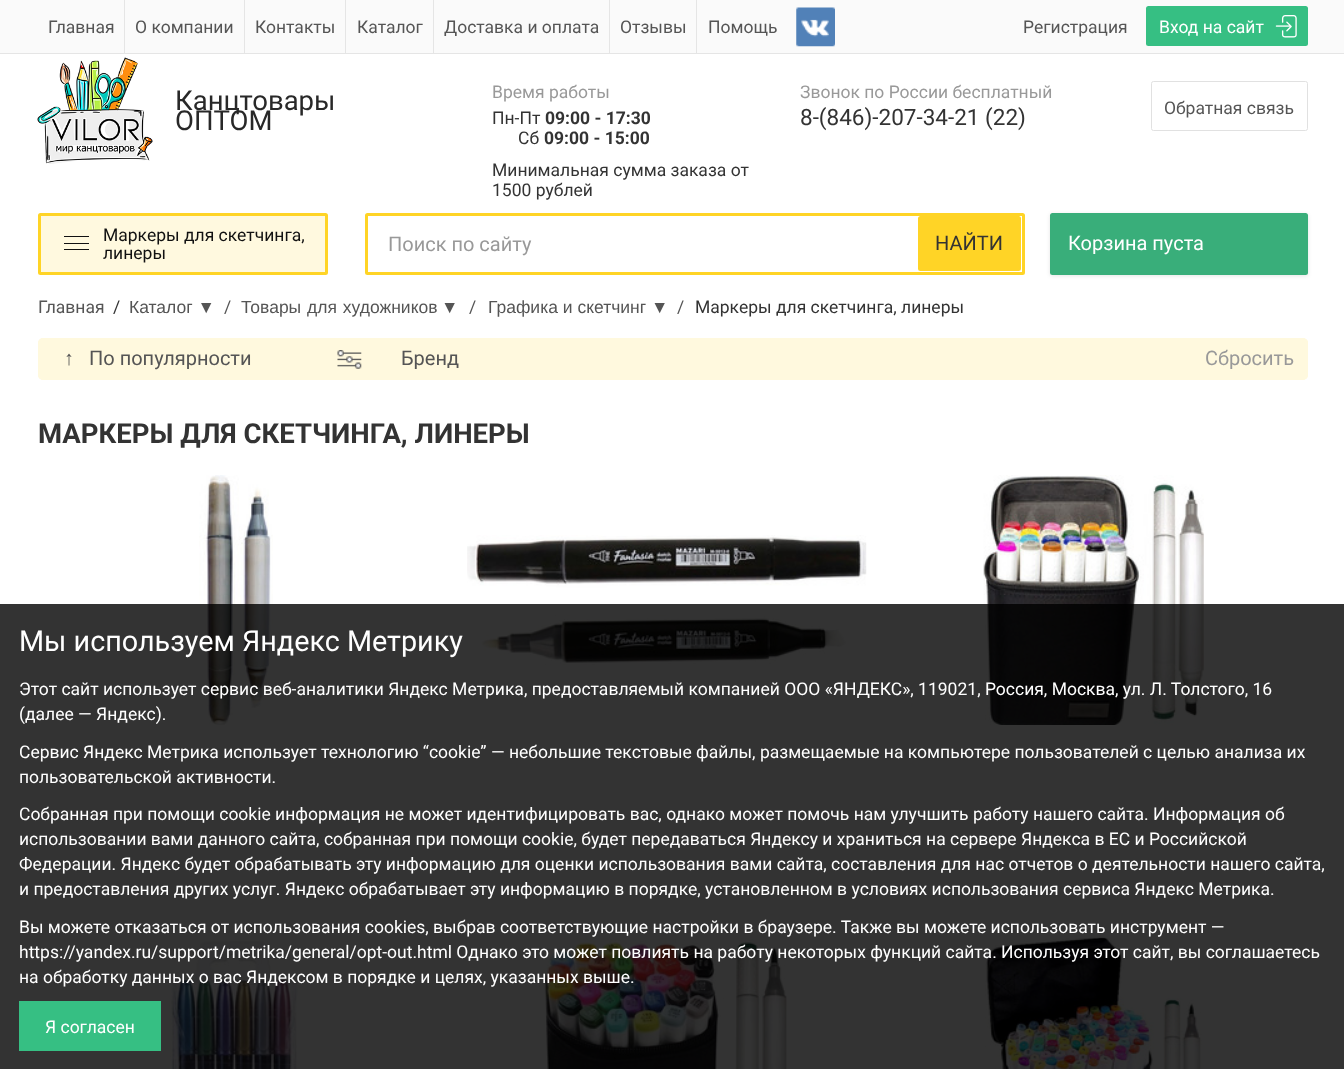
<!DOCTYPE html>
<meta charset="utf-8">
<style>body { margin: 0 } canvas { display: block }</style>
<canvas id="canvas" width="1344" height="1069"></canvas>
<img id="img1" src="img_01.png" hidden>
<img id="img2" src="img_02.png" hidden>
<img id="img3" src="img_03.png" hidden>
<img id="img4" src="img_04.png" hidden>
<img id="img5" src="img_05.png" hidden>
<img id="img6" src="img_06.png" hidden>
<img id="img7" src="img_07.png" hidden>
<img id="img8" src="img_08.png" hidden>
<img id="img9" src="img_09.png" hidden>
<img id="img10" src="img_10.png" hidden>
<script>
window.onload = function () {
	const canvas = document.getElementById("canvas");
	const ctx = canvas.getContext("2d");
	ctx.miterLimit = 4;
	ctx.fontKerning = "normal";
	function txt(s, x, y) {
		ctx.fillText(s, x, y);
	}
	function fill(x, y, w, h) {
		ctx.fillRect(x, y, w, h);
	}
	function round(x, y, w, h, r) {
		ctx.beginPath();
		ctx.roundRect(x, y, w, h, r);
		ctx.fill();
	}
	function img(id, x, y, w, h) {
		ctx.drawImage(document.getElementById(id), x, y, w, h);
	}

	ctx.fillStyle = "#FFFFFF";
	fill(0, 0, 1344, 1069);
	ctx.fillStyle = "#FAFAFA";
	fill(0, 0, 1344, 53);
	ctx.fillStyle = "#E5E5E5";
	fill(0, 53, 1344, 1);
	fill(124, 0, 1, 53);
	fill(244, 0, 1, 53);
	fill(345, 0, 1, 53);
	fill(433, 0, 1, 53);
	fill(609, 0, 1, 53);
	fill(696, 0, 1, 53);
	img("img1", 796, 7, 39, 40);
	ctx.fillStyle = "#36BF83";
	round(1146, 6, 162, 40, 2.5);
	img("img2", 1275, 15, 22, 23);
	img("img3", 37, 57, 116, 107);
	ctx.beginPath();
	ctx.roundRect(1151.5, 81.5, 156, 49, 2);
	ctx.strokeStyle = "#E1E1E1";
	ctx.stroke();
	ctx.beginPath();
	ctx.roundRect(39.5, 214.5, 287, 59, 1);
	ctx.strokeStyle = "#FFD426";
	ctx.lineWidth = 3;
	ctx.stroke();
	ctx.fillStyle = "rgba(255, 212, 38, 0.15)";
	fill(41, 216, 284, 56);
	ctx.fillStyle = "#111111";
	fill(64, 236, 25, 1);
	fill(64, 249, 25, 1);
	fill(64, 243, 25, 1);
	ctx.beginPath();
	ctx.roundRect(366.5, 214.5, 657, 59, 1);
	ctx.stroke();
	ctx.fillStyle = "#FFD426";
	round(918, 216, 103, 55, 2.5);
	ctx.save();
	ctx.beginPath();
	ctx.moveTo(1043, 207);
	ctx.lineTo(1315, 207);
	ctx.lineTo(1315, 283);
	ctx.lineTo(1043, 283);
	ctx.closePath();
	ctx.moveTo(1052.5, 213);
	ctx.lineTo(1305.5, 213);
	ctx.bezierCurveTo(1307, 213, 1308, 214, 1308, 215.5);
	ctx.lineTo(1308, 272.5);
	ctx.bezierCurveTo(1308, 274, 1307, 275, 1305.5, 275);
	ctx.lineTo(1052.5, 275);
	ctx.bezierCurveTo(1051, 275, 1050, 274, 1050, 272.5);
	ctx.lineTo(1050, 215.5);
	ctx.bezierCurveTo(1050, 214, 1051, 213, 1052.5, 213);
	ctx.closePath();
	ctx.clip("evenodd");
	ctx.fillStyle = "rgba(0, 0, 0, 0.1)";
	ctx.filter = "blur(2px)";
	ctx.beginPath();
	ctx.roundRect(1050, 214, 258, 62, 2.5);
	ctx.fill();
	ctx.filter = "none";
	ctx.restore();
	ctx.fillStyle = "rgba(35, 165, 108, 0.9)";
	round(1050, 213, 258, 62, 2.5);
	ctx.fillStyle = "#FFF9DE";
	fill(375, 338, 818, 42);
	ctx.beginPath();
	ctx.roundRect(38, 338, 337, 42, [5, 0, 0, 5]);
	ctx.fill();
	img("img4", 337, 350, 25, 19);
	ctx.beginPath();
	ctx.roundRect(38.5, 338.5, 336, 41, [4.5, 0, 0, 4.5]);
	ctx.strokeStyle = "#FFF9DE";
	ctx.lineWidth = 1;
	ctx.stroke();
	ctx.beginPath();
	ctx.roundRect(1193, 338, 115, 42, [0, 5, 5, 0]);
	ctx.fill();
	ctx.beginPath();
	ctx.moveTo(1192, 338);
	ctx.lineTo(1302, 338);
	ctx.bezierCurveTo(1305, 338, 1308, 340, 1308, 342);
	ctx.lineTo(1308, 375);
	ctx.bezierCurveTo(1308, 378, 1305, 380, 1302, 380);
	ctx.lineTo(1192, 380);
	ctx.closePath();
	ctx.moveTo(1192, 339);
	ctx.lineTo(1302, 339);
	ctx.bezierCurveTo(1305, 339, 1306, 340, 1306, 342);
	ctx.lineTo(1306, 375);
	ctx.bezierCurveTo(1306, 377, 1305, 379, 1302, 379);
	ctx.lineTo(1192, 379);
	ctx.closePath();
	ctx.fill("evenodd");
	img("img5", 199, 475, 74, 250);
	img("img6", 467, 535, 400, 130);
	img("img7", 983, 475, 221, 250);
	img("img8", 169, 940, 129, 129);
	img("img9", 542, 938, 245, 131);
	img("img10", 985, 937, 217, 132);
	ctx.fillStyle = "rgba(0, 0, 0, 0.8)";
	fill(0, 604, 1344, 465);
	ctx.fillStyle = "#36BF83";
	fill(19, 1001, 142, 50);
	ctx.font = "17.5px Roboto";
	ctx.fillStyle = "#555555";
	txt("Главная", 48, 33);
	txt("О компании", 135, 33);
	txt("Контакты", 255, 33);
	txt("Каталог", 357, 33);
	txt("Доставка и оплата", 444, 33);
	txt("Отзывы", 620, 33);
	txt("Помощь", 708, 33);
	txt("Регистрация", 1023, 33);
	ctx.fillStyle = "#FFFFFF";
	txt("Вход на сайт", 1159, 33);
	ctx.font = "27.5px Roboto";
	ctx.fillStyle = "#282828";
	txt("Канцтовары", 175, 110);
	txt("ОПТОМ", 175, 130);
	ctx.font = "17.5px Roboto";
	ctx.fillStyle = "#999999";
	txt("Время работы", 492, 98);
	ctx.fillStyle = "#333333";
	txt("Пн-Пт", 492, 124);
	ctx.font = "bold 17.5px Roboto";
	txt("09:00 - 17:30", 545, 124);
	ctx.font = "17.5px Roboto";
	txt("Сб", 518, 144);
	ctx.font = "bold 17.5px Roboto";
	txt("09:00 - 15:00", 544, 144);
	ctx.font = "17.5px Roboto";
	txt("Минимальная сумма заказа от", 492, 176);
	txt("1500 рублей", 492, 196);
	ctx.fillStyle = "#999999";
	txt("Звонок по России бесплатный", 800, 98);
	ctx.font = "22.5px Roboto";
	ctx.fillStyle = "#333333";
	txt("8-(846)-207-34-21 (22)", 800, 125);
	ctx.font = "17.5px Roboto";
	ctx.fillStyle = "#555555";
	txt("Обратная связь", 1164, 114);
	ctx.fillStyle = "#111111";
	txt("Маркеры для скетчинга,", 103, 241);
	txt("линеры", 103, 259);
	ctx.font = "20px Roboto";
	ctx.fillStyle = "#999999";
	txt("Поиск по сайту", 388, 251);
	ctx.fillStyle = "#333333";
	txt("НАЙТИ", 935, 250);
	ctx.fillStyle = "#FFFFFF";
	txt("Корзина пуста", 1068, 250);
	ctx.font = "17.5px Roboto";
	ctx.fillStyle = "#555555";
	txt("Главная", 38, 313);
	ctx.fillStyle = "#333333";
	txt("/", 113, 313);
	ctx.font = "17.5px Liberation Sans";
	ctx.fillStyle = "#555555";
	txt("Каталог ▼", 129, 313);
	ctx.font = "17.5px Roboto";
	txt("/", 224, 313);
	ctx.wordSpacing = "1px";
	ctx.font = "17.5px Liberation Sans";
	txt("Товары для художников", 241, 313);
	ctx.wordSpacing = "0px";
	txt("▼", 441, 313);
	ctx.font = "17.5px Roboto";
	txt("/", 469, 313);
	ctx.font = "17.5px Liberation Sans";
	txt("Графика и скетчинг", 488, 313);
	txt("▼", 651, 313);
	ctx.font = "17.5px Roboto";
	txt("/", 677, 313);
	ctx.fillStyle = "#333333";
	txt("Маркеры для скетчинга, линеры", 695, 313);
	ctx.font = "20px Liberation Sans";
	ctx.fillStyle = "#555555";
	txt("↑", 64, 365);
	ctx.font = "20px Roboto";
	txt("По популярности", 89, 365);
	txt("Бренд", 401, 365);
	ctx.fillStyle = "#999999";
	txt("Сбросить", 1205, 365);
	ctx.font = "bold 27.5px Roboto";
	ctx.fillStyle = "#333333";
	txt("МАРКЕРЫ ДЛЯ СКЕТЧИНГА, ЛИНЕРЫ", 38, 443);
	ctx.font = "28.75px Roboto";
	ctx.fillStyle = "#FFFFFF";
	txt("Мы используем Яндекс Метрику", 19, 651);
	ctx.font = "17.5px Roboto";
	txt("Этот сайт использует сервис веб-аналитики Яндекс Метрика, предоставляемый компанией ООО «ЯНДЕКС», 119021, Россия, Москва, ул. Л. Толстого, 16", 19, 695);
	txt("(далее — Яндекс).", 19, 720);
	txt("Сервис Яндекс Метрика использует технологию “cookie” — небольшие текстовые файлы, размещаемые на компьютере пользователей с целью анализа их", 19, 758);
	txt("пользовательской активности.", 19, 783);
	txt("Собранная при помощи cookie информация не может идентифицировать вас, однако может помочь нам улучшить работу нашего сайта. Информация об", 19, 820);
	txt("использовании вами данного сайта, собранная при помощи cookie, будет передаваться Яндексу и храниться на сервере Яндекса в ЕС и Российской", 19, 845);
	txt("Федерации. Яндекс будет обрабатывать эту информацию для оценки использования вами сайта, составления для нас отчетов о деятельности нашего сайта,", 19, 870);
	txt("и предоставления других услуг. Яндекс обрабатывает эту информацию в порядке, установленном в условиях использования сервиса Яндекс Метрика.", 19, 895);
	txt("Вы можете отказаться от использования cookies, выбрав соответствующие настройки в браузере. Также вы можете использовать инструмент —", 19, 933);
	txt("https://yandex.ru/support/metrika/general/opt-out.html Однако это может повлиять на работу некоторых функций сайта. Используя этот сайт, вы соглашаетесь", 19, 958);
	txt("на обработку данных о вас Яндексом в порядке и целях, указанных выше.", 19, 983);
	txt("Я согласен", 45, 1033);
};
</script>
